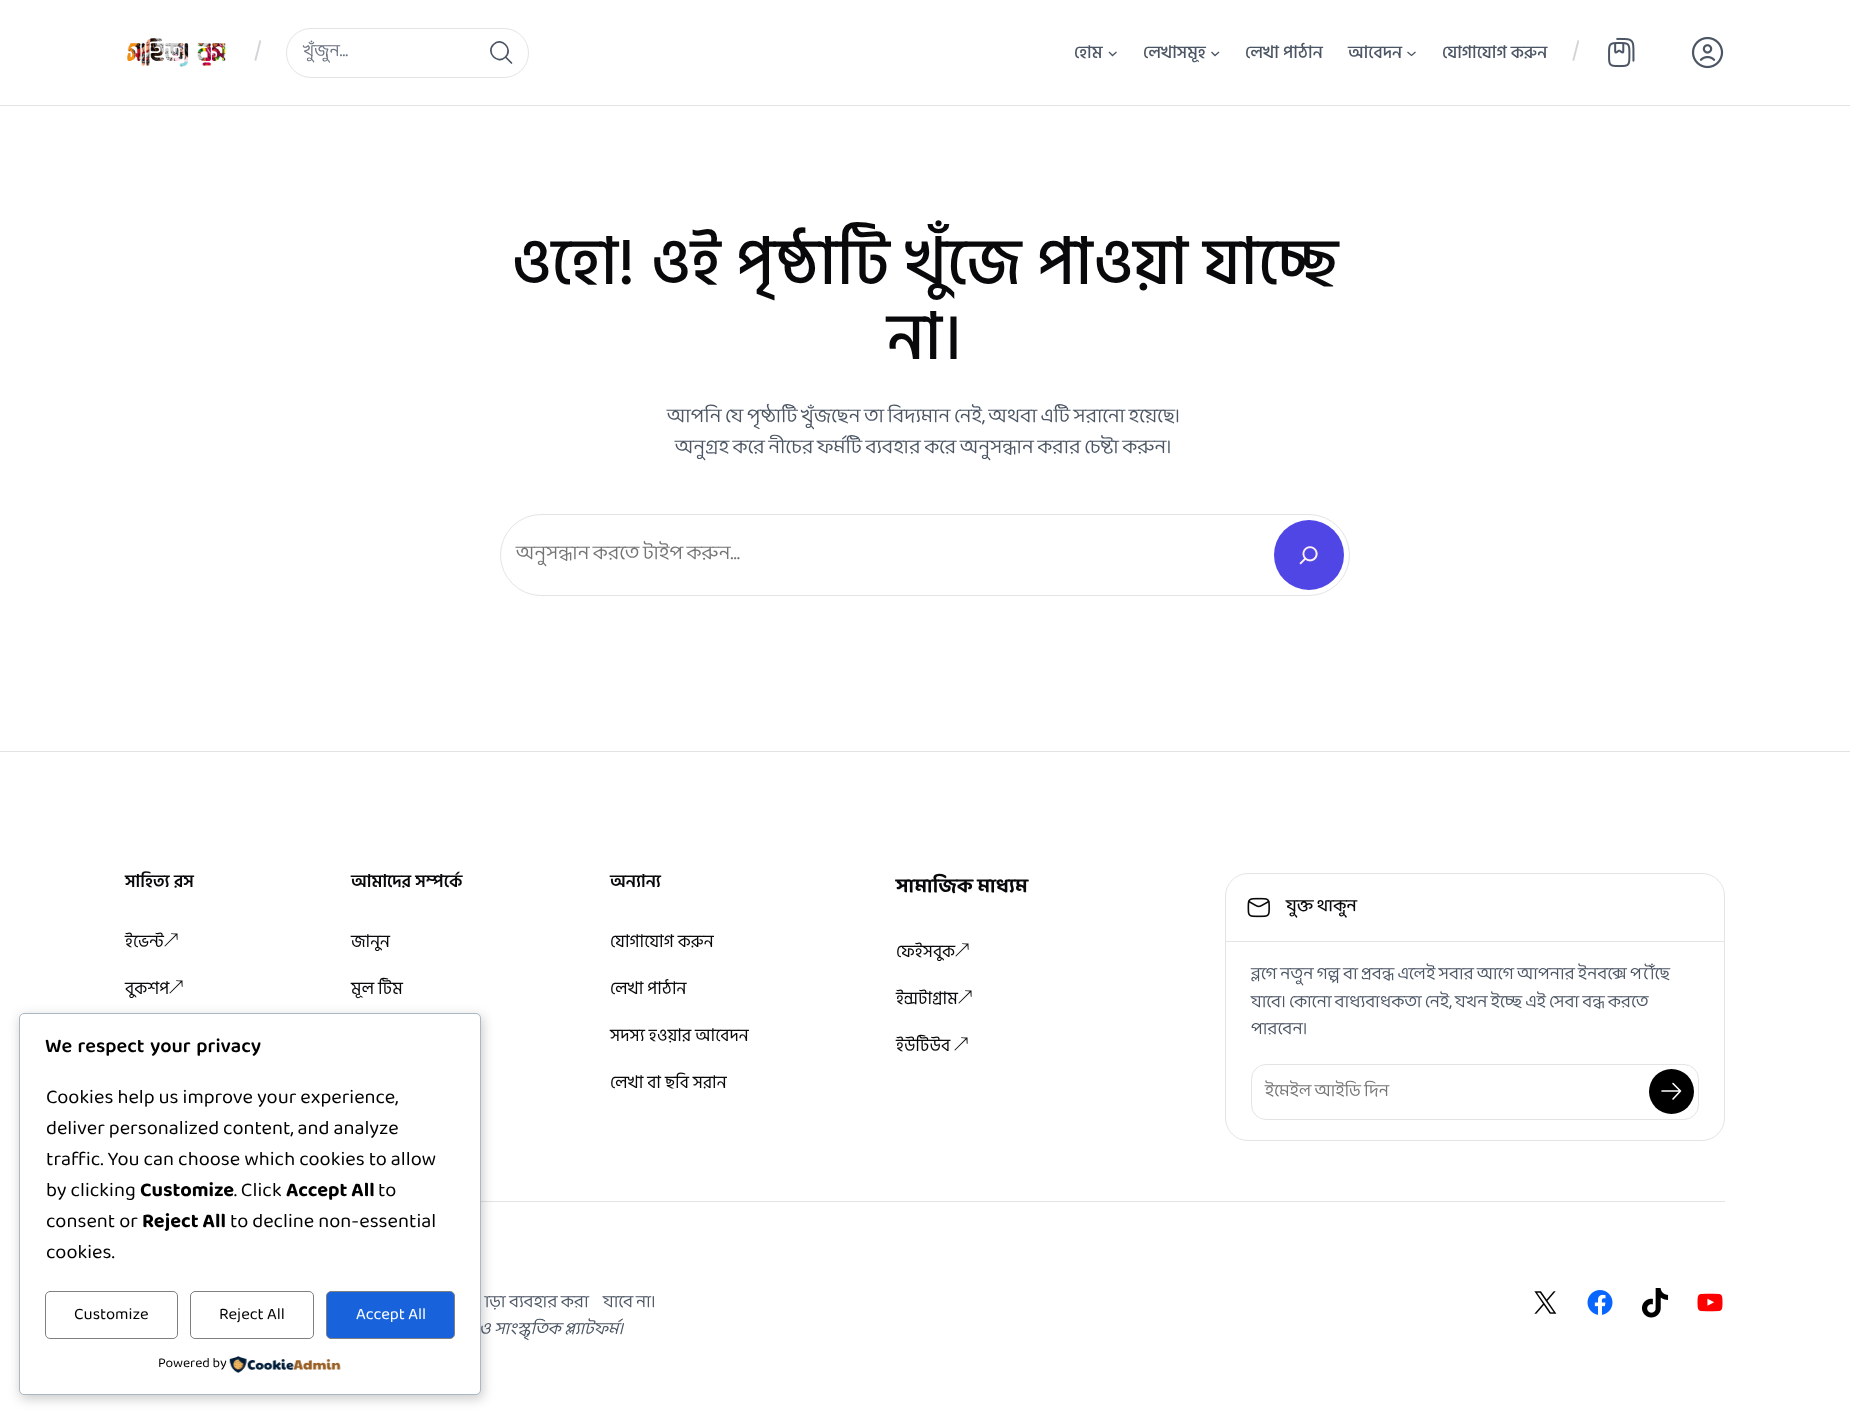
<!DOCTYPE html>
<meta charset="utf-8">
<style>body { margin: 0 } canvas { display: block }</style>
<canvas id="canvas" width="1850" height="1420"></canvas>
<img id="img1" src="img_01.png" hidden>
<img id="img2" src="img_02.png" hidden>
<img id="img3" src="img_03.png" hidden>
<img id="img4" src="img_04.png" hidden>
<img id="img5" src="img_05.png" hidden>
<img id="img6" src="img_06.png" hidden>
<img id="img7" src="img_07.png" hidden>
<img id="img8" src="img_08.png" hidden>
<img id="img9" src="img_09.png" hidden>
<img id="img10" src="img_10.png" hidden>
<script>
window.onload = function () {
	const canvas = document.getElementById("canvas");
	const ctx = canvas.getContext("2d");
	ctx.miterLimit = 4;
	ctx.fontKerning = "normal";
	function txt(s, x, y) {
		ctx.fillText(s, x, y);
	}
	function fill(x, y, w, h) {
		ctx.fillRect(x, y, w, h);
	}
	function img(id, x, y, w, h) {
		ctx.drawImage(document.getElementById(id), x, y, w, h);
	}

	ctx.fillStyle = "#FFFFFF";
	fill(0, 0, 1850, 1420);
	ctx.fillStyle = "#E4E4E7";
	fill(0, 105, 1850, 1);
	img("img1", 127, 38, 99, 29);
	ctx.beginPath();
	ctx.roundRect(286.5, 28.5, 242, 49, 24.5);
	ctx.strokeStyle = "#E4E4E7";
	ctx.stroke();
	ctx.beginPath();
	ctx.moveTo(511.5, 63);
	ctx.lineTo(505.5, 57);
	ctx.moveTo(505.5, 57);
	ctx.bezierCurveTo(513.5, 49, 501.5, 36.5, 493.5, 44.5);
	ctx.bezierCurveTo(485.5, 52.5, 497.5, 65, 505.5, 57);
	ctx.closePath();
	ctx.strokeStyle = "#4B5563";
	ctx.lineWidth = 1.7;
	ctx.lineCap = "round";
	ctx.lineJoin = "round";
	ctx.stroke();
	ctx.beginPath();
	ctx.moveTo(1109, 52);
	ctx.lineTo(1112.5, 55.5);
	ctx.lineTo(1116.5, 52);
	ctx.lineWidth = 1.3;
	ctx.lineCap = "butt";
	ctx.lineJoin = "miter";
	ctx.stroke();
	ctx.beginPath();
	ctx.moveTo(1211.5, 52);
	ctx.lineTo(1215, 55.5);
	ctx.lineTo(1219, 52);
	ctx.stroke();
	ctx.beginPath();
	ctx.moveTo(1407.5, 52);
	ctx.lineTo(1411.5, 55.5);
	ctx.lineTo(1415.5, 52);
	ctx.stroke();
	img("img2", 1608, 37, 27, 31);
	img("img3", 1691, 36, 33, 33);
	ctx.beginPath();
	ctx.roundRect(500.5, 514.5, 849, 81, 40.5);
	ctx.strokeStyle = "#E4E4E7";
	ctx.lineWidth = 1;
	ctx.stroke();
	ctx.fillStyle = "#4F46E5";
	ctx.beginPath();
	ctx.arc(1309, 555, 35, 0, Math.PI * 2);
	ctx.fill();
	img("img4", 1299, 546, 19, 19);
	ctx.fillStyle = "#E4E4E7";
	fill(0, 751, 1850, 1);
	ctx.beginPath();
	ctx.roundRect(1225.5, 873.5, 499, 267, 22.5);
	ctx.stroke();
	fill(1226, 941, 498, 1);
	img("img5", 1247, 897, 23, 21);
	ctx.beginPath();
	ctx.roundRect(1251.5, 1064.5, 447, 55, 14.5);
	ctx.stroke();
	ctx.fillStyle = "#000000";
	ctx.beginPath();
	ctx.arc(1671.5, 1091.5, 22.5, 0, Math.PI * 2);
	ctx.fill();
	ctx.beginPath();
	ctx.moveTo(1673, 1083.5);
	ctx.lineTo(1680.5, 1091);
	ctx.moveTo(1680.5, 1091);
	ctx.lineTo(1673, 1099);
	ctx.moveTo(1680.5, 1091);
	ctx.lineTo(1662, 1091);
	ctx.strokeStyle = "#FFFFFF";
	ctx.lineWidth = 1.6;
	ctx.lineCap = "round";
	ctx.lineJoin = "round";
	ctx.stroke();
	ctx.fillStyle = "#E4E4E7";
	fill(481, 1201, 1244, 1);
	img("img6", 1534, 1291, 23, 23);
	img("img7", 1587, 1290, 26, 25);
	img("img8", 1642, 1288, 27, 30);
	img("img9", 1697, 1293, 26, 19);
	ctx.fillStyle = "rgba(0, 0, 0, 0.2)";
	ctx.filter = "blur(6px)";
	ctx.beginPath();
	ctx.roundRect(20, 1016, 463, 383, 5);
	ctx.fill();
	ctx.filter = "none";
	ctx.fillStyle = "#FFFFFF";
	ctx.beginPath();
	ctx.roundRect(19.5, 1013.5, 461, 381, 4.5);
	ctx.fill();
	ctx.strokeStyle = "#ABB8C3";
	ctx.lineWidth = 1;
	ctx.lineJoin = "miter";
	ctx.stroke();
	ctx.beginPath();
	ctx.roundRect(45.5, 1291.5, 132, 47, 4.5);
	ctx.strokeStyle = "#808080";
	ctx.stroke();
	ctx.beginPath();
	ctx.roundRect(190.5, 1291.5, 123, 47, 4.5);
	ctx.stroke();
	ctx.fillStyle = "#1863DC";
	ctx.beginPath();
	ctx.roundRect(326.5, 1291.5, 128, 47, 4.5);
	ctx.fill();
	ctx.stroke();
	img("img10", 229, 1356, 112, 17);
	ctx.font = "25px 'Baloo Da 2'";
	ctx.fillStyle = "#D4D4D8";
	txt("/", 254, 58);
	ctx.font = "17.5px 'Baloo Da 2'";
	ctx.fillStyle = "#6B7280";
	txt("খুঁজুন…", 303, 56);
	ctx.font = "500 17.5px Hind Siliguri";
	ctx.fillStyle = "#4B5563";
	txt("হোম", 1074, 58);
	txt("লেখাসমূহ", 1143, 58);
	txt("লেখা পাঠান", 1245, 58);
	txt("আবেদন", 1348, 58);
	txt("যোগাযোগ করুন", 1442, 58);
	ctx.font = "25px 'Baloo Da 2'";
	ctx.fillStyle = "#D4D4D8";
	txt("/", 1572, 58);
	ctx.font = "500 65.4px Hind Siliguri";
	ctx.fillStyle = "#09090B";
	txt("ওহো! ওই পৃষ্ঠাটি খুঁজে পাওয়া যাচ্ছে", 511, 284);
	txt("না।", 887, 359);
	ctx.wordSpacing = "-0.25px";
	ctx.font = "20px 'Baloo Da 2'";
	ctx.fillStyle = "#4B5563";
	txt("আপনি যে পৃষ্ঠাটি খুঁজছেন তা বিদ্যমান নেই, অথবা এটি সরানো হয়েছে।", 667, 422);
	txt("অনুগ্রহ করে নীচের ফর্মটি ব্যবহার করে অনুসন্ধান করার চেষ্টা করুন।", 675, 453);
	ctx.wordSpacing = "-0.5px";
	ctx.fillStyle = "#757575";
	txt("অনুসন্ধান করতে টাইপ করুন...", 516, 559);
	ctx.wordSpacing = "0px";
	ctx.font = "600 17.5px Hind Siliguri";
	ctx.fillStyle = "#09090B";
	txt("সাহিত্য রস", 125, 887);
	ctx.font = "17.5px Hind Siliguri";
	txt("ইভেন্ট", 125, 947);
	ctx.font = "17.5px FreeSans";
	txt("↗", 164, 947);
	ctx.font = "17.5px Hind Siliguri";
	txt("বুকশপ", 125, 994);
	ctx.font = "17.5px FreeSans";
	txt("↗", 169, 994);
	ctx.font = "600 17.5px Hind Siliguri";
	txt("আমাদের সম্পর্কে", 351, 887);
	ctx.font = "17.5px Hind Siliguri";
	txt("জানুন", 351, 947);
	txt("মূল টিম", 351, 994);
	ctx.font = "600 17.5px Hind Siliguri";
	txt("অন্যান্য", 610, 887);
	ctx.font = "17.5px Hind Siliguri";
	txt("যোগাযোগ করুন", 610, 947);
	txt("লেখা পাঠান", 610, 994);
	txt("সদস্য হওয়ার আবেদন", 610, 1041);
	txt("লেখা বা ছবি সরান", 610, 1088);
	ctx.wordSpacing = "-1px";
	ctx.font = "bold 20px 'Baloo Da 2'";
	txt("সামাজিক মাধ্যম", 896, 892);
	ctx.wordSpacing = "0px";
	ctx.font = "17.5px Hind Siliguri";
	txt("ফেইসবুক", 896, 957);
	ctx.font = "17.5px FreeSans";
	txt("↗", 955, 957);
	ctx.font = "17.5px Hind Siliguri";
	txt("ইন্সটাগ্রাম", 896, 1004);
	ctx.font = "17.5px FreeSans";
	txt("↗", 958, 1004);
	ctx.font = "17.5px Hind Siliguri";
	txt("ইউটিউব", 896, 1051);
	ctx.font = "17.5px FreeSans";
	txt("↗", 954, 1051);
	ctx.font = "500 17.5px 'Baloo Da 2'";
	txt("যুক্ত থাকুন", 1286, 911);
	ctx.wordSpacing = "-0.25px";
	ctx.font = "17.5px 'Baloo Da 2'";
	ctx.fillStyle = "#4B5563";
	txt("ব্লগে নতুন গল্প বা প্রবন্ধ এলেই সবার আগে আপনার ইনবক্সে পৌঁছে", 1251, 979);
	txt("যাবে। কোনো বাধ্যবাধকতা নেই, যখন ইচ্ছে এই সেবা বন্ধ করতে", 1251, 1007);
	ctx.wordSpacing = "0px";
	txt("পারবেন।", 1251, 1034);
	ctx.fillStyle = "#757575";
	txt("ইমেইল আইডি দিন", 1265, 1096);
	ctx.fillStyle = "#4B5563";
	txt("াড়া ব্যবহার করা", 485, 1307);
	txt("যাবে", 603, 1307);
	txt("না।", 636, 1307);
	ctx.wordSpacing = "-0.25px";
	ctx.font = "italic 17.5px 'Baloo Da 2'";
	txt("ও সাংস্কৃতিক প্ল্যাটফর্ম।", 479, 1334);
	ctx.wordSpacing = "1.5px";
	ctx.font = "600 20px 'Baloo Da 2'";
	ctx.fillStyle = "#000000";
	txt("We respect your privacy", 45, 1052);
	ctx.wordSpacing = "0px";
	ctx.font = "20px 'Baloo Da 2'";
	txt("Cookies help us improve your experience,", 46, 1103);
	txt("deliver personalized content, and analyze", 46, 1134);
	txt("traffic. You can choose which cookies to allow", 46, 1165);
	txt("by clicking", 46, 1196);
	ctx.font = "bold 20px 'Baloo Da 2'";
	txt("Customize", 140, 1196);
	ctx.font = "20px 'Baloo Da 2'";
	txt(". Click", 234, 1196);
	ctx.font = "bold 20px 'Baloo Da 2'";
	txt("Accept All", 286, 1196);
	ctx.font = "20px 'Baloo Da 2'";
	txt("to", 378, 1196);
	txt("consent or", 46, 1227);
	ctx.font = "bold 20px 'Baloo Da 2'";
	txt("Reject All", 142, 1227);
	ctx.font = "20px 'Baloo Da 2'";
	txt("to decline non-essential", 230, 1227);
	txt("cookies.", 46, 1258);
	ctx.font = "16.5px 'Baloo Da 2'";
	txt("Customize", 74, 1319);
	txt("Reject All", 219, 1319);
	ctx.fillStyle = "#FFFFFF";
	txt("Accept All", 356, 1319);
	ctx.font = "13.75px 'Baloo Da 2'";
	ctx.fillStyle = "#000000";
	txt("Powered by", 158, 1367);
};
</script>
